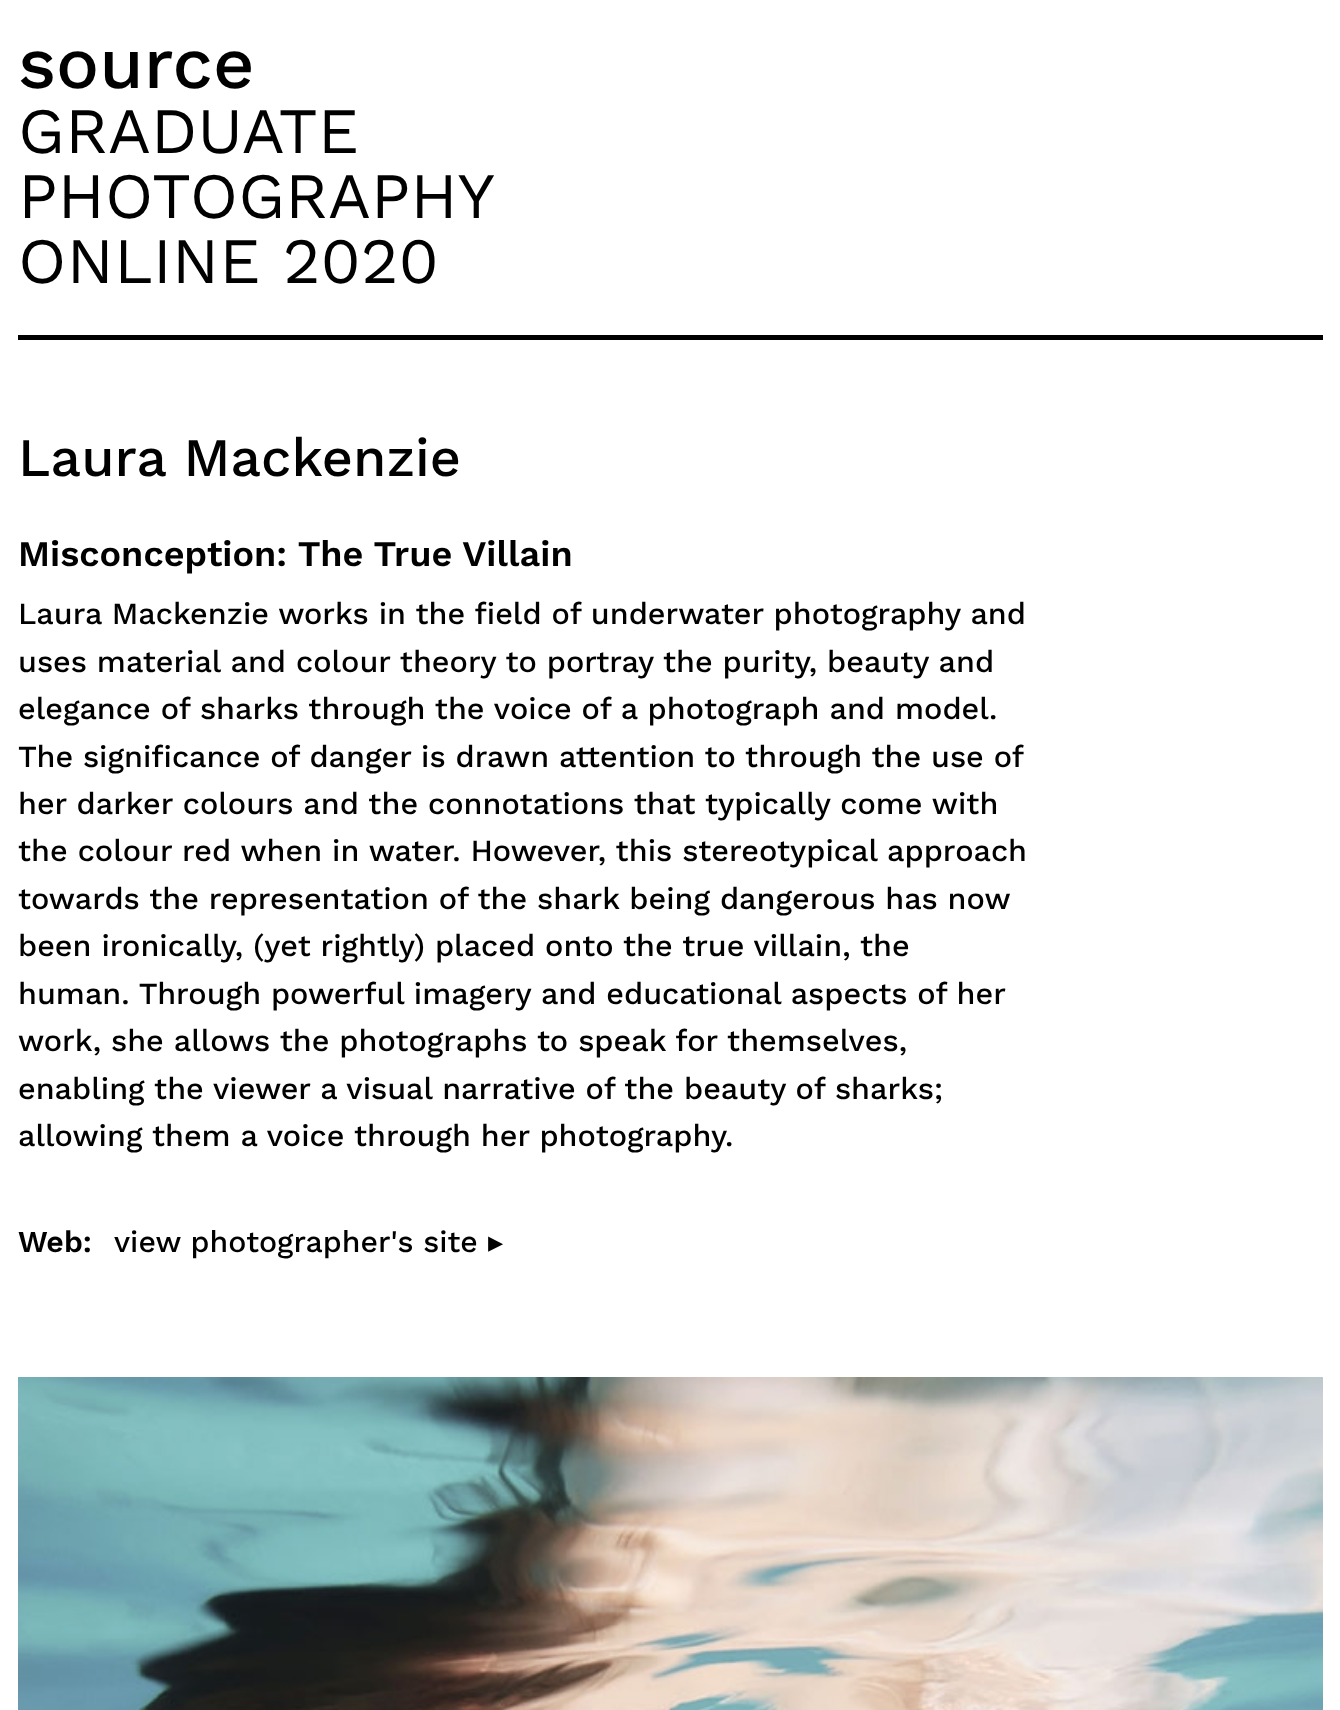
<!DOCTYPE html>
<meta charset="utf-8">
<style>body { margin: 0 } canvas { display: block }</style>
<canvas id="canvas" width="1340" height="1710"></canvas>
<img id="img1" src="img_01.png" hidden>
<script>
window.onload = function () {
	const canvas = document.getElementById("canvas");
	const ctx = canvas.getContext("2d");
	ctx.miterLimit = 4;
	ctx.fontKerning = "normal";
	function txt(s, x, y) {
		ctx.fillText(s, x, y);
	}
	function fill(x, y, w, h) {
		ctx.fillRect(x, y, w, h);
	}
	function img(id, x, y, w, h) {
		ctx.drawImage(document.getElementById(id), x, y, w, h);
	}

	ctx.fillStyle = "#FFFFFF";
	fill(0, 0, 1340, 1710);
	ctx.fillStyle = "#000000";
	fill(18, 335, 1305, 5);
	img("img1", 18, 1377, 1305, 333);
	ctx.font = "500 72px Work Sans";
	txt("source", 18, 88);
	ctx.font = "64.75px Work Sans";
	txt("GRADUATE", 18, 153);
	txt("PHOTOGRAPHY", 18, 218);
	txt("ONLINE 2020", 18, 283);
	ctx.font = "500 54px Work Sans";
	txt("Laura Mackenzie", 18, 476);
	ctx.font = "600 36px Work Sans";
	txt("Misconception: The True Villain", 18, 566);
	ctx.font = "500 30.6px Work Sans";
	txt("Laura Mackenzie works in the field of underwater photography and", 18, 624);
	txt("uses material and colour theory to portray the purity, beauty and", 18, 672);
	txt("elegance of sharks through the voice of a photograph and model.", 18, 719);
	ctx.wordSpacing = "-0.1px";
	txt("The significance of danger is drawn attention to through the use of", 18, 767);
	ctx.wordSpacing = "0px";
	txt("her darker colours and the connotations that typically come with", 18, 814);
	txt("the colour red when in water. However, this stereotypical approach", 18, 861);
	ctx.wordSpacing = "-0.1px";
	txt("towards the representation of the shark being dangerous has now", 18, 909);
	ctx.wordSpacing = "0px";
	txt("been ironically, (yet rightly) placed onto the true villain, the", 18, 956);
	ctx.wordSpacing = "-0.1px";
	txt("human. Through powerful imagery and educational aspects of her", 18, 1004);
	ctx.wordSpacing = "0px";
	txt("work, she allows the photographs to speak for themselves,", 18, 1051);
	txt("enabling the viewer a visual narrative of the beauty of sharks;", 18, 1099);
	txt("allowing them a voice through her photography.", 18, 1146);
	ctx.font = "600 30.25px Work Sans";
	txt("Web:", 18, 1252);
	ctx.font = "500 30.25px Work Sans";
	txt("view photographer's site", 114, 1252);
	ctx.font = "30.25px DejaVu Sans";
	txt("▸", 488, 1252);
};
</script>
